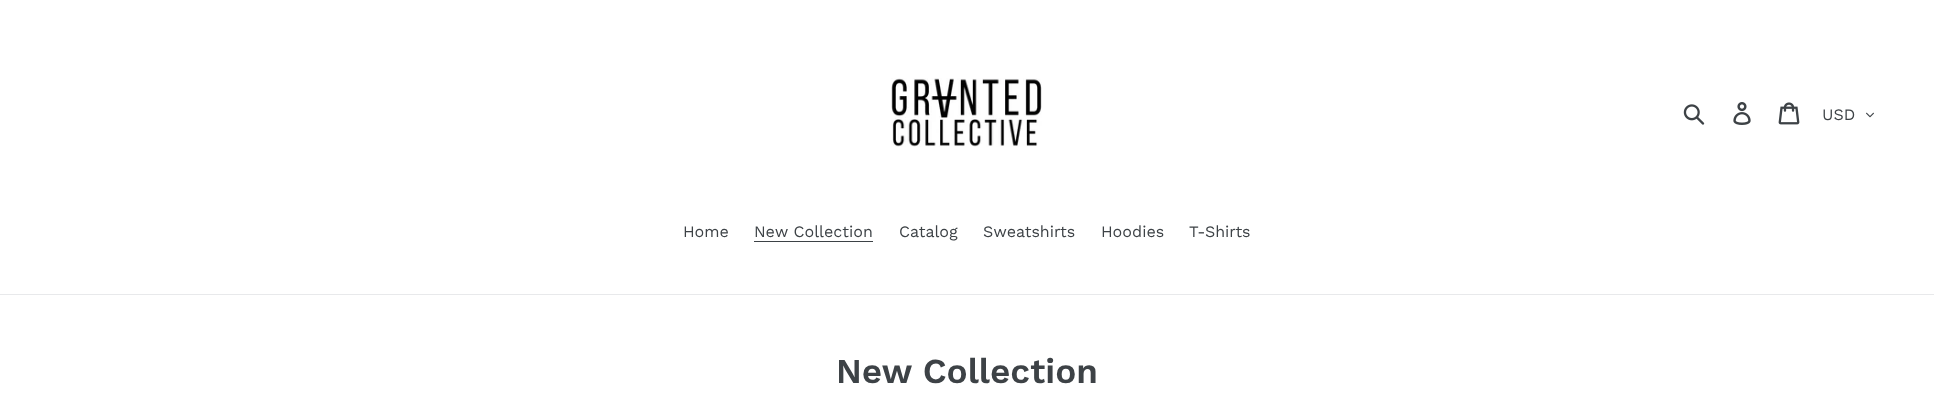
<!DOCTYPE html>
<meta charset="utf-8">
<style>body { margin: 0 } canvas { display: block }</style>
<canvas id="canvas" width="1934" height="417"></canvas>
<img id="img1" src="img_01.png" hidden>
<img id="img2" src="img_02.png" hidden>
<img id="img3" src="img_03.png" hidden>
<img id="img4" src="img_04.png" hidden>
<img id="img5" src="img_05.png" hidden>
<script>
window.onload = function () {
	const canvas = document.getElementById("canvas");
	const ctx = canvas.getContext("2d");
	ctx.miterLimit = 4;
	ctx.fontKerning = "normal";
	function txt(s, x, y) {
		ctx.fillText(s, x, y);
	}
	function fill(x, y, w, h) {
		ctx.fillRect(x, y, w, h);
	}
	function img(id, x, y, w, h) {
		ctx.drawImage(document.getElementById(id), x, y, w, h);
	}

	ctx.fillStyle = "#FFFFFF";
	fill(0, 0, 1934, 417);
	img("img1", 891, 78, 151, 69);
	img("img2", 1683, 104, 22, 21);
	img("img3", 1733, 102, 18, 23);
	img("img4", 1778, 102, 22, 23);
	img("img5", 1866, 112, 8, 6);
	ctx.fillStyle = "#E8E9EB";
	fill(0, 294, 1934, 1);
	ctx.fillStyle = "#3D4246";
	fill(754, 241, 119, 1);
	ctx.font = "16px Work Sans";
	txt("USD", 1822, 120);
	txt("Home", 683, 237);
	txt("New Collection", 754, 237);
	txt("Catalog", 899, 237);
	txt("Sweatshirts", 983, 237);
	txt("Hoodies", 1101, 237);
	txt("T-Shirts", 1189, 237);
	ctx.font = "600 35px Work Sans";
	txt("New Collection", 836, 383);
};
</script>
